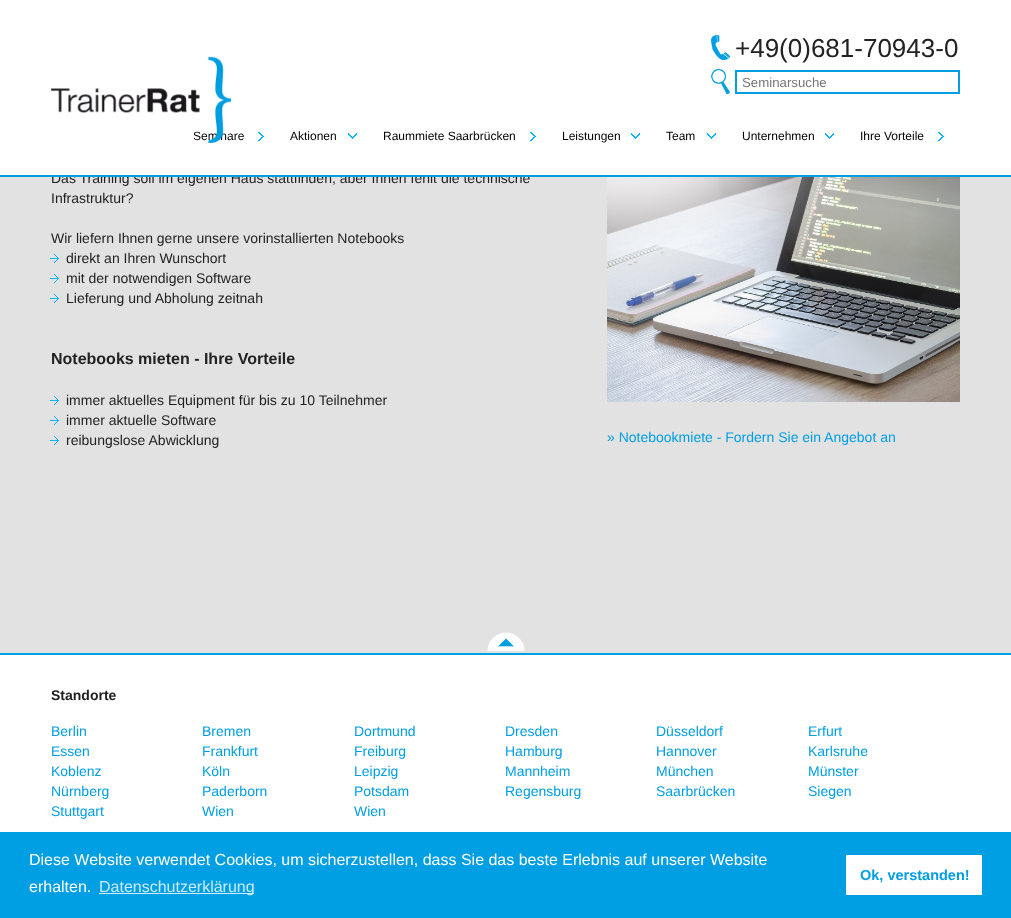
<!DOCTYPE html>
<meta charset="utf-8">
<style>body { margin: 0 } canvas { display: block }</style>
<canvas id="canvas" width="1011" height="918"></canvas>
<img id="img1" src="img_06.png" hidden>
<img id="img2" src="img_07.png" hidden>
<img id="img3" src="img_08.png" hidden>
<img id="img4" src="img_01.png" hidden>
<img id="img5" src="img_04.png" hidden>
<img id="img6" src="img_05.png" hidden>
<img id="img7" src="img_03.png" hidden>
<img id="img8" src="img_02.png" hidden>
<script>
window.onload = function () {
	const canvas = document.getElementById("canvas");
	const ctx = canvas.getContext("2d");
	ctx.miterLimit = 4;
	ctx.fontKerning = "normal";
	function txt(s, x, y) {
		ctx.fillText(s, x, y);
	}
	function fill(x, y, w, h) {
		ctx.fillRect(x, y, w, h);
	}
	function img(id, x, y, w, h) {
		ctx.drawImage(document.getElementById(id), x, y, w, h);
	}

	ctx.fillStyle = "#E2E2E2";
	fill(0, 0, 1011, 918);
	img("img1", 50, 254, 9, 9);
	img("img1", 50, 274, 9, 9);
	img("img1", 50, 294, 9, 9);
	img("img1", 50, 396, 9, 9);
	img("img1", 50, 416, 9, 9);
	img("img1", 50, 436, 9, 9);
	img("img2", 607, 177, 353, 225);
	img("img3", 487, 632, 38, 19);
	ctx.fillStyle = "#FFFFFF";
	fill(0, 655, 1011, 177);
	ctx.fillStyle = "#009EE3";
	fill(0, 653, 1011, 2);
	fill(0, 832, 1011, 86);
	ctx.fillStyle = "#CCECF9";
	fill(99, 893, 155, 1);
	ctx.fillStyle = "#FFFFFF";
	fill(846, 855, 136, 40);
	ctx.font = "14px Liberation Sans";
	ctx.fillStyle = "#222222";
	txt("Das Training soll im eigenen Haus stattfinden, aber Ihnen fehlt die technische", 51, 183);
	ctx.fillStyle = "#FFFFFF";
	fill(0, 0, 1011, 175);
	ctx.font = "12px Liberation Sans";
	ctx.fillStyle = "#000000";
	txt("Seminare", 193, 140);
	img("img4", 50, 56, 181, 87);
	txt("Ihre Vorteile", 860, 140);
	img("img5", 938, 132, 6, 9);
	txt("Unternehmen", 742, 140);
	img("img6", 825, 133, 9, 6);
	txt("Team", 666, 140);
	img("img6", 707, 133, 9, 6);
	txt("Leistungen", 562, 140);
	img("img6", 631, 133, 9, 6);
	txt("Raummiete Saarbrücken", 383, 140);
	img("img5", 530, 132, 6, 9);
	txt("Aktionen", 290, 140);
	img("img6", 348, 133, 9, 6);
	img("img5", 258, 132, 6, 9);
	ctx.strokeStyle = "#009EE3";
	ctx.lineWidth = 2;
	ctx.strokeRect(736, 71, 223, 22);
	ctx.font = "13.25px Liberation Sans";
	ctx.fillStyle = "#757575";
	txt("Seminarsuche", 742, 87);
	img("img7", 711, 69, 19, 25);
	ctx.font = "26px Liberation Sans";
	ctx.fillStyle = "#222222";
	txt("+49(0)681-70943-0", 735, 57);
	img("img8", 711, 35, 19, 25);
	ctx.fillStyle = "#009EE3";
	fill(0, 175, 1011, 2);
	ctx.font = "14px Liberation Sans";
	ctx.fillStyle = "#222222";
	txt("Infrastruktur?", 51, 203);
	txt("Wir liefern Ihnen gerne unsere vorinstallierten Notebooks", 51, 243);
	txt("direkt an Ihren Wunschort", 66, 263);
	txt("mit der notwendigen Software", 66, 283);
	txt("Lieferung und Abholung zeitnah", 66, 303);
	ctx.font = "bold 16px Liberation Sans";
	txt("Notebooks mieten - Ihre Vorteile", 51, 364);
	ctx.font = "14px Liberation Sans";
	txt("immer aktuelles Equipment für bis zu 10 Teilnehmer", 66, 405);
	txt("immer aktuelle Software", 66, 425);
	txt("reibungslose Abwicklung", 66, 445);
	ctx.fillStyle = "#009EE3";
	txt("» Notebookmiete - Fordern Sie ein Angebot an", 607, 442);
	ctx.font = "bold 14px Liberation Sans";
	ctx.fillStyle = "#222222";
	txt("Standorte", 51, 700);
	ctx.font = "14px Liberation Sans";
	ctx.fillStyle = "#009EE3";
	txt("Berlin", 51, 736);
	txt("Bremen", 202, 736);
	txt("Dortmund", 354, 736);
	txt("Dresden", 505, 736);
	txt("Düsseldorf", 656, 736);
	txt("Erfurt", 808, 736);
	txt("Essen", 51, 756);
	txt("Frankfurt", 202, 756);
	txt("Freiburg", 354, 756);
	txt("Hamburg", 505, 756);
	txt("Hannover", 656, 756);
	txt("Karlsruhe", 808, 756);
	txt("Koblenz", 51, 776);
	txt("Köln", 202, 776);
	txt("Leipzig", 354, 776);
	txt("Mannheim", 505, 776);
	txt("München", 656, 776);
	txt("Münster", 808, 776);
	txt("Nürnberg", 51, 796);
	txt("Paderborn", 202, 796);
	txt("Potsdam", 354, 796);
	txt("Regensburg", 505, 796);
	txt("Saarbrücken", 656, 796);
	txt("Siegen", 808, 796);
	txt("Stuttgart", 51, 816);
	txt("Wien", 202, 816);
	txt("Wien", 354, 816);
	ctx.font = "16px Liberation Sans";
	ctx.fillStyle = "#FFFFFF";
	txt("Diese Website verwendet Cookies, um sicherzustellen, dass Sie das beste Erlebnis auf unserer Website", 29, 865);
	txt("erhalten.", 29, 892);
	ctx.fillStyle = "#CCECF9";
	txt("Datenschutzerklärung", 99, 892);
	ctx.font = "bold 14.5px Liberation Sans";
	ctx.fillStyle = "#009EE3";
	txt("Ok, verstanden!", 860, 880);
};
</script>
